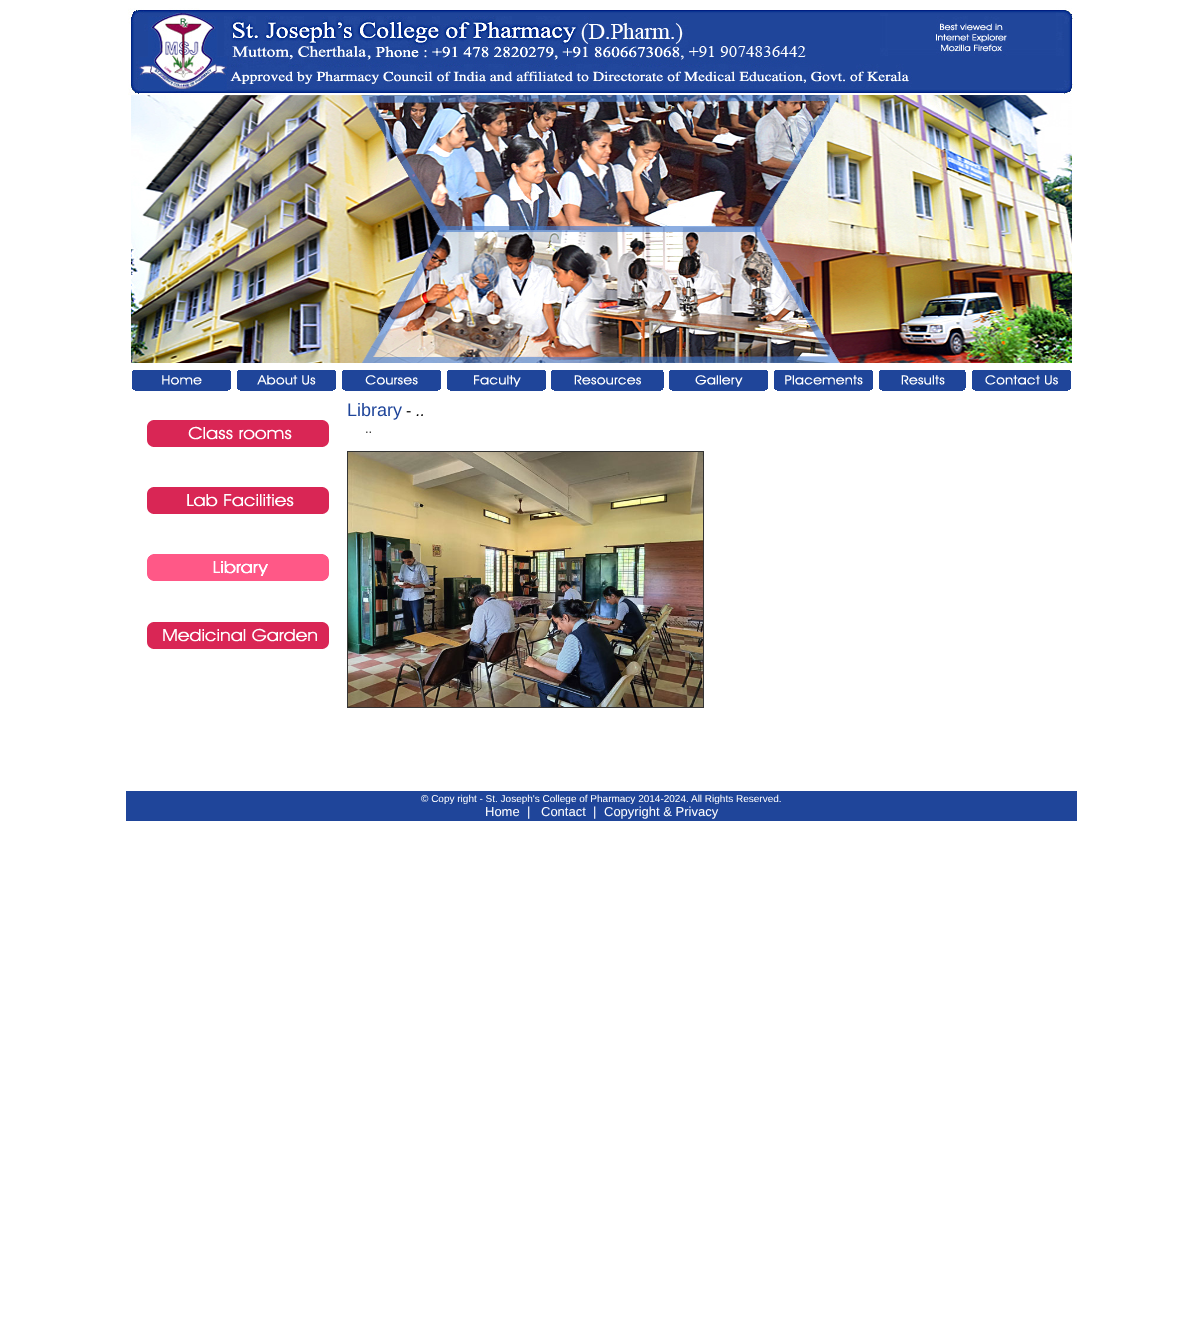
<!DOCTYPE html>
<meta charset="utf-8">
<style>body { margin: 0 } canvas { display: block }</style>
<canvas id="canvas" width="1203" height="1321"></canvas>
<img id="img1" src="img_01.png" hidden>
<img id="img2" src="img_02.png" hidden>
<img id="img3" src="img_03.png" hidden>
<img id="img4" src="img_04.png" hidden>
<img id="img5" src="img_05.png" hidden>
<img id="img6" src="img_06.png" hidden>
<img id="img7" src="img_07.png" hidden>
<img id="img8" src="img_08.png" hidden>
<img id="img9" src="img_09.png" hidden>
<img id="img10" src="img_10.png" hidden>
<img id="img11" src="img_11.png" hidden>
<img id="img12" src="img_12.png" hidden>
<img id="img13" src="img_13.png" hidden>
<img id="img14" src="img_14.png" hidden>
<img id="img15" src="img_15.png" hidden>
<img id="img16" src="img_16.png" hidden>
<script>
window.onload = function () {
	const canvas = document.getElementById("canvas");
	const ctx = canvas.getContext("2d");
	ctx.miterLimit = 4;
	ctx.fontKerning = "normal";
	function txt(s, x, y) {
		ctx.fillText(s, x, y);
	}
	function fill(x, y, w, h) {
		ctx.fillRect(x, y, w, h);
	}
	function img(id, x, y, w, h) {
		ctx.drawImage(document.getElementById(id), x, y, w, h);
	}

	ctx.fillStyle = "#FFFFFF";
	fill(0, 0, 1203, 1321);
	img("img1", 128, 8, 948, 87);
	img("img2", 131, 95, 941, 268);
	img("img3", 132, 370, 99, 21);
	img("img4", 237, 370, 99, 21);
	img("img5", 342, 370, 99, 21);
	img("img6", 447, 370, 99, 21);
	img("img7", 551, 370, 113, 21);
	img("img8", 669, 370, 99, 21);
	img("img9", 774, 370, 99, 21);
	img("img10", 879, 370, 87, 21);
	img("img11", 972, 370, 99, 21);
	img("img12", 147, 420, 182, 27);
	img("img13", 147, 487, 182, 27);
	img("img14", 147, 554, 182, 27);
	img("img15", 147, 622, 182, 27);
	ctx.strokeStyle = "#333333";
	ctx.strokeRect(347.5, 451.5, 356, 256);
	img("img16", 348, 452, 355, 255);
	ctx.fillStyle = "#1F459A";
	fill(126, 791, 951, 30);
	ctx.font = "18px Liberation Sans";
	txt("Library", 347, 416);
	ctx.font = "16px Liberation Sans";
	ctx.fillStyle = "#000000";
	txt("-", 406, 416);
	ctx.font = "italic 16px Liberation Sans";
	txt("..", 416, 416);
	ctx.font = "13px Liberation Sans";
	ctx.fillStyle = "#333333";
	txt("..", 365, 433);
	ctx.font = "10px Liberation Sans";
	ctx.fillStyle = "#FFFFFF";
	txt("© Copy right - St. Joseph's College of Pharmacy 2014-2024. All Rights Reserved.", 421, 802);
	ctx.font = "13px Liberation Sans";
	txt("Home", 485, 816);
	txt("|", 527, 816);
	txt("Contact", 541, 816);
	txt("|", 593, 816);
	txt("Copyright & Privacy", 604, 816);
};
</script>
